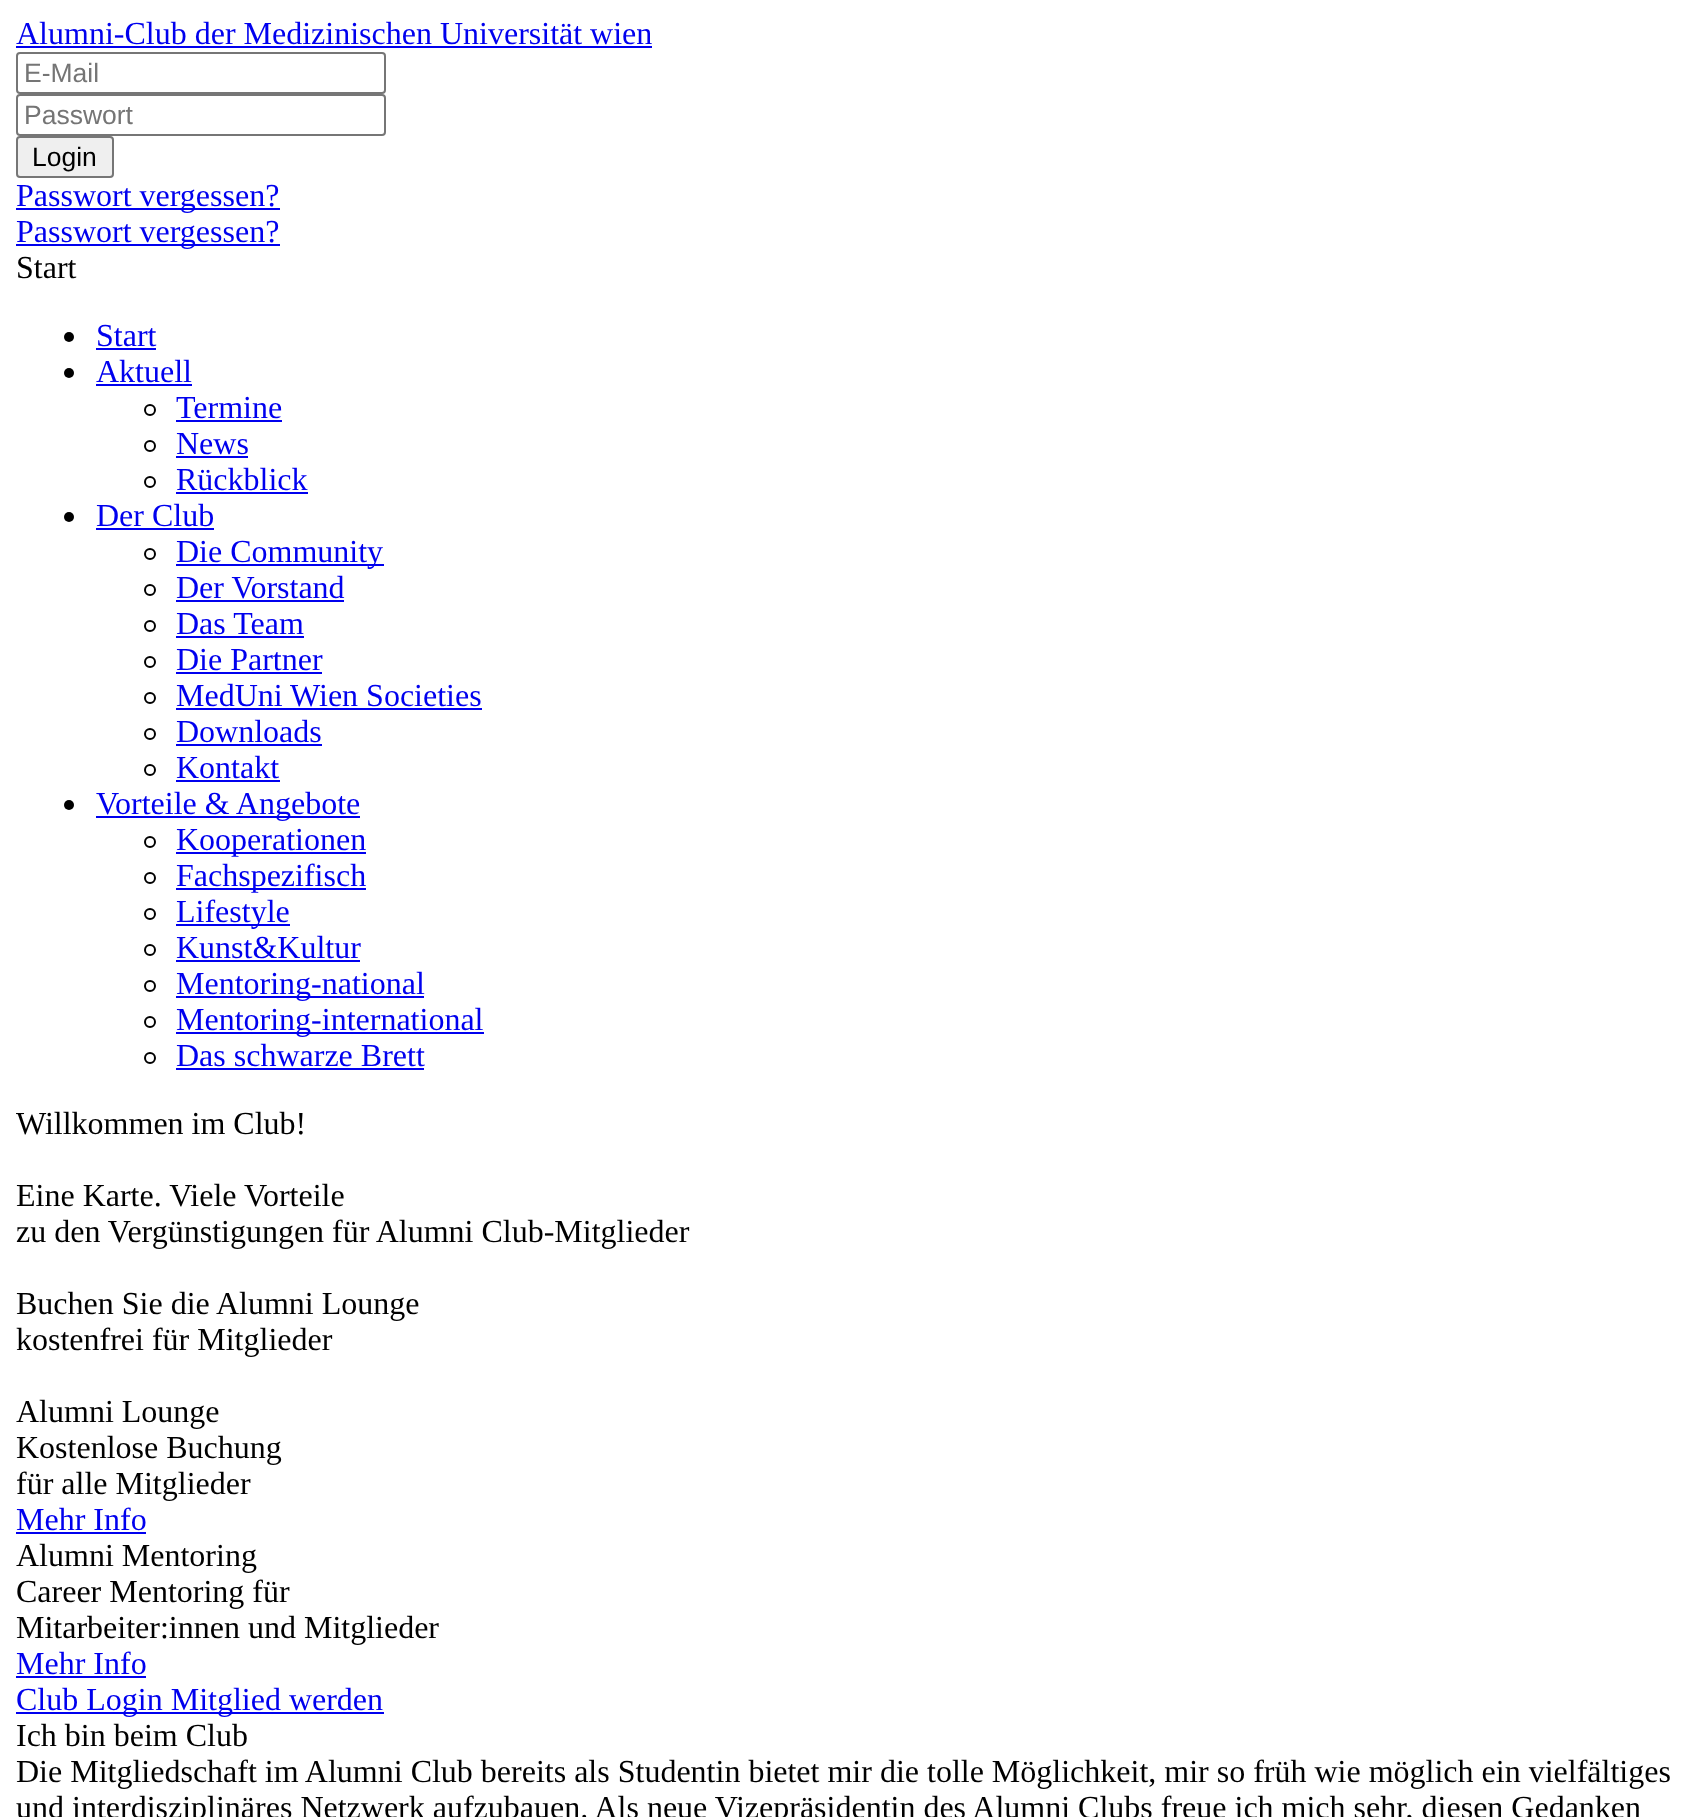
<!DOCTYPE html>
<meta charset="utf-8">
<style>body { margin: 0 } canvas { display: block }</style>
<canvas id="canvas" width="1689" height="1817"></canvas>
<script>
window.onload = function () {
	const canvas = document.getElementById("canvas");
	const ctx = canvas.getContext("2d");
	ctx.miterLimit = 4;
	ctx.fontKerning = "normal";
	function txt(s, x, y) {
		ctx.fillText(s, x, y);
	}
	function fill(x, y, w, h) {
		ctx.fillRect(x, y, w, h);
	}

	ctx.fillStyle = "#FFFFFF";
	fill(0, 0, 1689, 1817);
	ctx.fillStyle = "#0000EE";
	fill(16, 46, 636, 2);
	ctx.beginPath();
	ctx.roundRect(17, 53, 368, 40, 3);
	ctx.strokeStyle = "#767676";
	ctx.lineWidth = 2;
	ctx.stroke();
	ctx.beginPath();
	ctx.roundRect(17, 95, 368, 40, 3);
	ctx.stroke();
	ctx.fillStyle = "#EFEFEF";
	ctx.beginPath();
	ctx.roundRect(17, 137, 96, 40, 3);
	ctx.fill();
	ctx.stroke();
	ctx.fillStyle = "#0000EE";
	fill(16, 208, 264, 2);
	fill(16, 244, 264, 2);
	ctx.fillStyle = "#000000";
	ctx.beginPath();
	ctx.arc(69, 337, 5, 0, Math.PI * 2);
	ctx.fill();
	ctx.fillStyle = "#0000EE";
	fill(96, 348, 60, 2);
	ctx.fillStyle = "#000000";
	ctx.beginPath();
	ctx.arc(69, 373, 5, 0, Math.PI * 2);
	ctx.fill();
	ctx.fillStyle = "#0000EE";
	fill(96, 384, 96, 2);
	ctx.beginPath();
	ctx.arc(150, 410, 5, 0, Math.PI * 2);
	ctx.strokeStyle = "#000000";
	ctx.stroke();
	fill(176, 420, 106, 2);
	ctx.beginPath();
	ctx.arc(150, 446, 5, 0, Math.PI * 2);
	ctx.stroke();
	fill(176, 456, 72, 2);
	ctx.beginPath();
	ctx.arc(150, 482, 5, 0, Math.PI * 2);
	ctx.stroke();
	fill(176, 492, 132, 2);
	ctx.fillStyle = "#000000";
	ctx.beginPath();
	ctx.arc(69, 517, 5, 0, Math.PI * 2);
	ctx.fill();
	ctx.fillStyle = "#0000EE";
	fill(96, 528, 118, 2);
	ctx.beginPath();
	ctx.arc(150, 554, 5, 0, Math.PI * 2);
	ctx.stroke();
	fill(176, 564, 208, 2);
	ctx.beginPath();
	ctx.arc(150, 590, 5, 0, Math.PI * 2);
	ctx.stroke();
	fill(176, 600, 168, 2);
	ctx.beginPath();
	ctx.arc(150, 626, 5, 0, Math.PI * 2);
	ctx.stroke();
	fill(176, 636, 128, 2);
	ctx.beginPath();
	ctx.arc(150, 662, 5, 0, Math.PI * 2);
	ctx.stroke();
	fill(176, 672, 146, 2);
	ctx.beginPath();
	ctx.arc(150, 698, 5, 0, Math.PI * 2);
	ctx.stroke();
	fill(176, 708, 306, 2);
	ctx.beginPath();
	ctx.arc(150, 734, 5, 0, Math.PI * 2);
	ctx.stroke();
	fill(176, 744, 146, 2);
	ctx.beginPath();
	ctx.arc(150, 770, 5, 0, Math.PI * 2);
	ctx.stroke();
	fill(176, 780, 104, 2);
	ctx.fillStyle = "#000000";
	ctx.beginPath();
	ctx.arc(69, 805, 5, 0, Math.PI * 2);
	ctx.fill();
	ctx.fillStyle = "#0000EE";
	fill(96, 816, 264, 2);
	ctx.beginPath();
	ctx.arc(150, 842, 5, 0, Math.PI * 2);
	ctx.stroke();
	fill(176, 852, 190, 2);
	ctx.beginPath();
	ctx.arc(150, 878, 5, 0, Math.PI * 2);
	ctx.stroke();
	fill(176, 888, 190, 2);
	ctx.beginPath();
	ctx.arc(150, 914, 5, 0, Math.PI * 2);
	ctx.stroke();
	fill(176, 924, 114, 2);
	ctx.beginPath();
	ctx.arc(150, 950, 5, 0, Math.PI * 2);
	ctx.stroke();
	fill(176, 960, 184, 2);
	ctx.beginPath();
	ctx.arc(150, 986, 5, 0, Math.PI * 2);
	ctx.stroke();
	fill(176, 996, 248, 2);
	ctx.beginPath();
	ctx.arc(150, 1022, 5, 0, Math.PI * 2);
	ctx.stroke();
	fill(176, 1032, 308, 2);
	ctx.beginPath();
	ctx.arc(150, 1058, 5, 0, Math.PI * 2);
	ctx.stroke();
	fill(176, 1068, 248, 2);
	fill(16, 1532, 130, 2);
	fill(16, 1676, 130, 2);
	fill(16, 1712, 368, 2);
	ctx.font = "32px Liberation Serif";
	txt("Alumni-Club der Medizinischen Universität wien", 16, 44);
	ctx.font = "26.5px Liberation Sans";
	ctx.fillStyle = "#757575";
	txt("E-Mail", 24, 82);
	txt("Passwort", 24, 124);
	ctx.fillStyle = "#000000";
	txt("Login", 32, 166);
	ctx.font = "32px Liberation Serif";
	ctx.fillStyle = "#0000EE";
	txt("Passwort vergessen?", 16, 206);
	txt("Passwort vergessen?", 16, 242);
	ctx.fillStyle = "#000000";
	txt("Start", 16, 278);
	ctx.fillStyle = "#0000EE";
	txt("Start", 96, 346);
	txt("Aktuell", 96, 382);
	txt("Termine", 176, 418);
	txt("News", 176, 454);
	txt("Rückblick", 176, 490);
	txt("Der Club", 96, 526);
	txt("Die Community", 176, 562);
	txt("Der Vorstand", 176, 598);
	txt("Das Team", 176, 634);
	txt("Die Partner", 176, 670);
	txt("MedUni Wien Societies", 176, 706);
	txt("Downloads", 176, 742);
	txt("Kontakt", 176, 778);
	txt("Vorteile & Angebote", 96, 814);
	txt("Kooperationen", 176, 850);
	txt("Fachspezifisch", 176, 886);
	txt("Lifestyle", 176, 922);
	txt("Kunst&Kultur", 176, 958);
	txt("Mentoring-national", 176, 994);
	txt("Mentoring-international", 176, 1030);
	txt("Das schwarze Brett", 176, 1066);
	ctx.fillStyle = "#000000";
	txt("Willkommen im Club!", 16, 1134);
	txt("Eine Karte. Viele Vorteile", 16, 1206);
	txt("zu den Vergünstigungen für Alumni Club-Mitglieder", 16, 1242);
	txt("Buchen Sie die Alumni Lounge", 16, 1314);
	txt("kostenfrei für Mitglieder", 16, 1350);
	txt("Alumni Lounge", 16, 1422);
	txt("Kostenlose Buchung", 16, 1458);
	txt("für alle Mitglieder", 16, 1494);
	ctx.fillStyle = "#0000EE";
	txt("Mehr Info", 16, 1530);
	ctx.fillStyle = "#000000";
	txt("Alumni Mentoring", 16, 1566);
	txt("Career Mentoring für", 16, 1602);
	txt("Mitarbeiter:innen und Mitglieder", 16, 1638);
	ctx.fillStyle = "#0000EE";
	txt("Mehr Info", 16, 1674);
	txt("Club Login Mitglied werden", 16, 1710);
	ctx.fillStyle = "#000000";
	txt("Ich bin beim Club", 16, 1746);
	txt("Die Mitgliedschaft im Alumni Club bereits als Studentin bietet mir die tolle Möglichkeit, mir so früh wie möglich ein vielfältiges", 16, 1782);
	txt("und interdisziplinäres Netzwerk aufzubauen. Als neue Vizepräsidentin des Alumni Clubs freue ich mich sehr, diesen Gedanken", 16, 1818);
};
</script>
